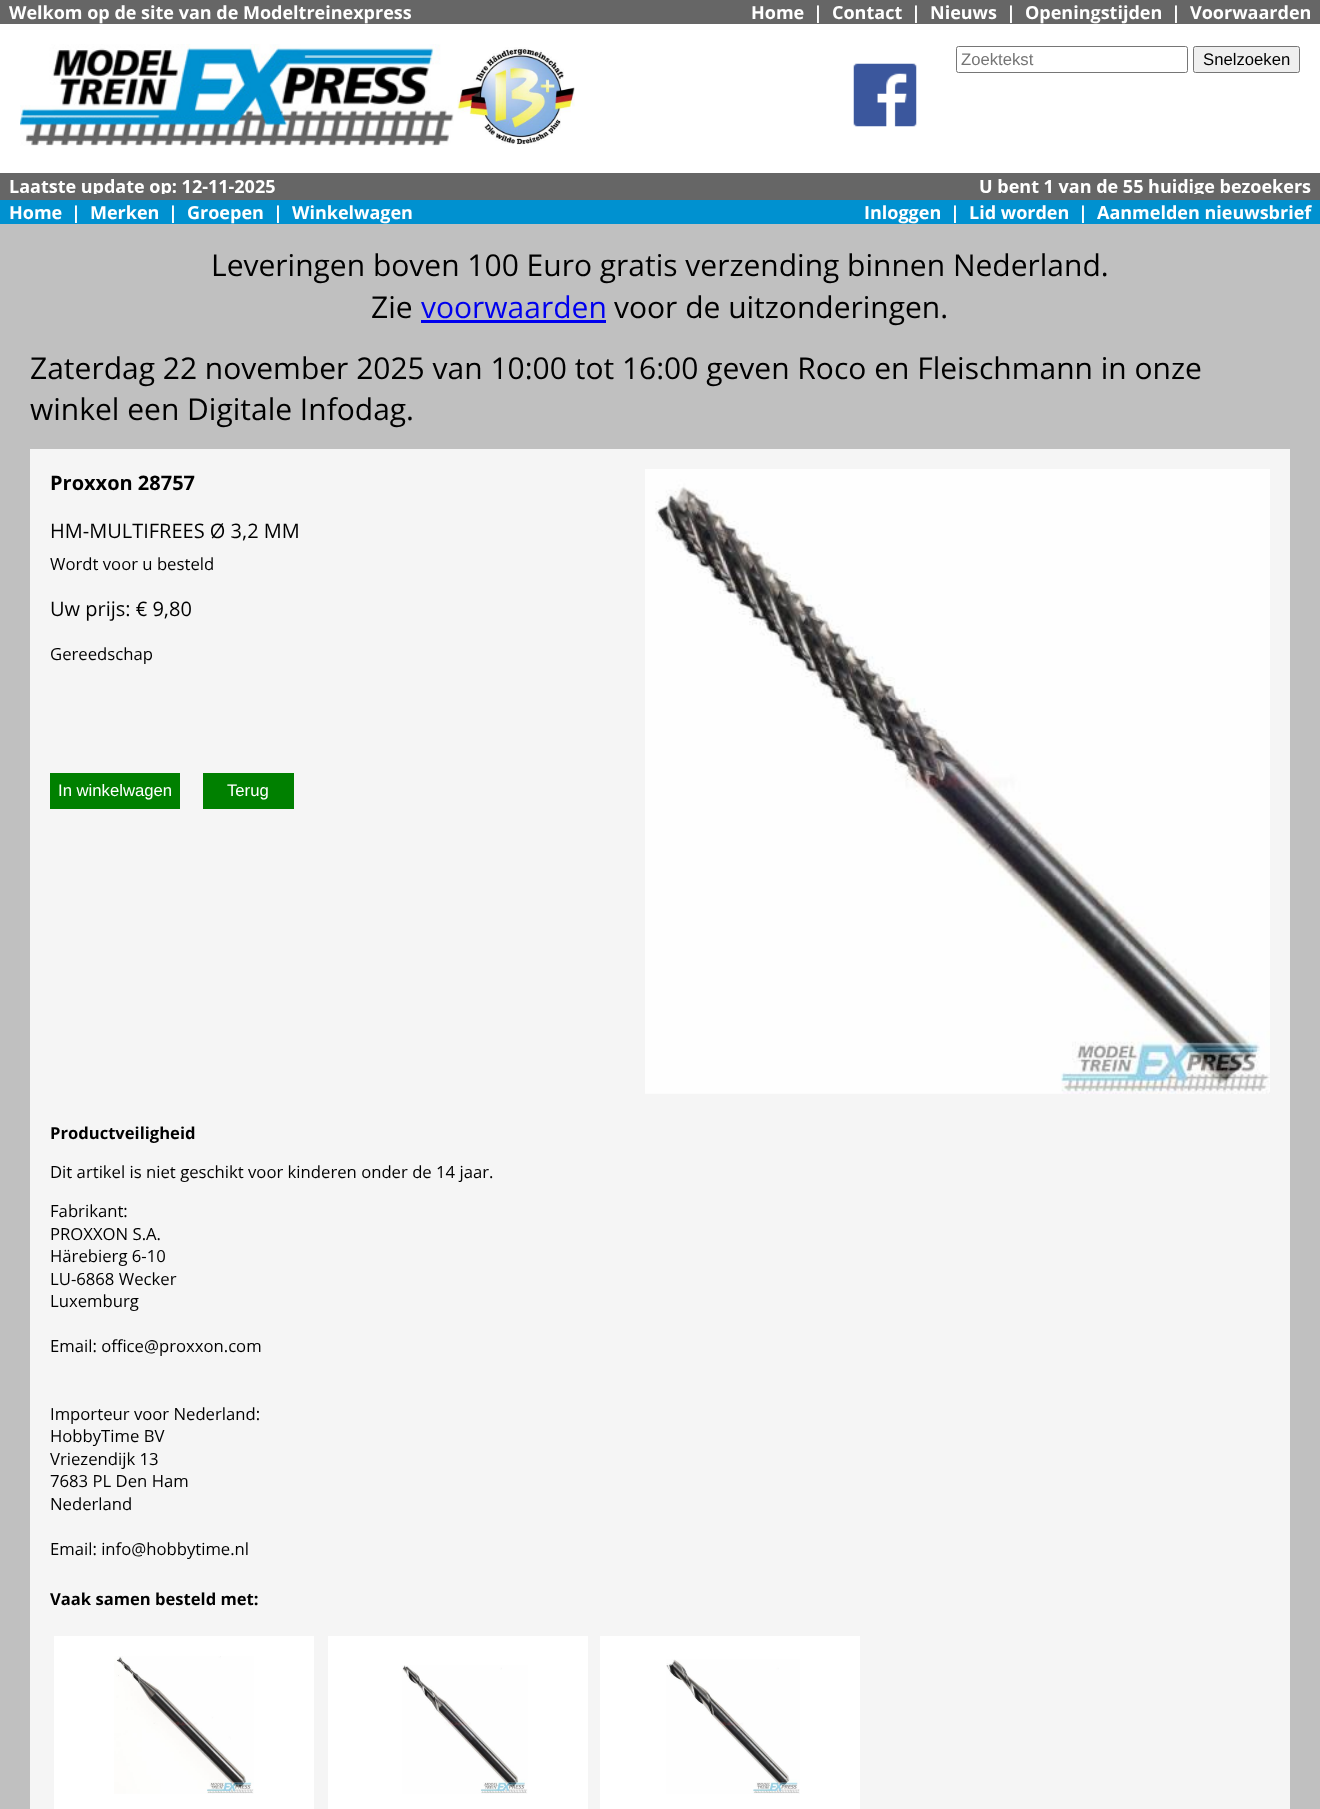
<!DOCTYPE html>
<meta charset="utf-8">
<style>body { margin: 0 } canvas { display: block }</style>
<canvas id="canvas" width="1320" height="1809"></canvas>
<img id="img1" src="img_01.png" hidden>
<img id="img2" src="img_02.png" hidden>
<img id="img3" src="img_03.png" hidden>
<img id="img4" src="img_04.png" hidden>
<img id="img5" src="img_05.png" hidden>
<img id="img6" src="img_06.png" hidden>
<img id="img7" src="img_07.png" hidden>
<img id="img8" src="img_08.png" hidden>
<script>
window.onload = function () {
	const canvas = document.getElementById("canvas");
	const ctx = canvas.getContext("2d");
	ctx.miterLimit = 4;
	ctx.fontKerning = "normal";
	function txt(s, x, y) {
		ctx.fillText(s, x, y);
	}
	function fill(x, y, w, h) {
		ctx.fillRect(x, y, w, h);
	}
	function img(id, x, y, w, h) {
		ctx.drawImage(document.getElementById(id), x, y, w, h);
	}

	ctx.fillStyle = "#666666";
	fill(0, 0, 1320, 1809);
	ctx.fillStyle = "#FFFFFF";
	fill(0, 24, 1320, 149);
	img("img1", 20, 44, 434, 102);
	img("img2", 457, 47, 118, 98);
	ctx.beginPath();
	ctx.roundRect(956.5, 46.5, 231, 26, 2);
	ctx.strokeStyle = "#767676";
	ctx.stroke();
	ctx.fillStyle = "#EFEFEF";
	ctx.beginPath();
	ctx.roundRect(1193.5, 46.5, 106, 26, 2);
	ctx.fill();
	ctx.stroke();
	img("img3", 853, 63, 64, 64);
	img("img4", 10, 179, 1301, 15);
	ctx.fillStyle = "#0091D0";
	fill(0, 200, 1320, 24);
	ctx.fillStyle = "#C0C0C0";
	fill(0, 224, 1320, 1585);
	ctx.fillStyle = "#0000EE";
	fill(421, 320, 185, 3);
	ctx.fillStyle = "#F5F5F5";
	fill(30, 449, 1260, 1360);
	img("img5", 645, 469, 625, 625);
	ctx.fillStyle = "#008000";
	fill(50, 773, 130, 36);
	fill(203, 773, 91, 36);
	ctx.fillStyle = "#FFFFFF";
	fill(54, 1636, 260, 173);
	img("img6", 114, 1656, 140, 138);
	fill(328, 1636, 260, 173);
	img("img7", 402, 1665, 126, 129);
	fill(600, 1636, 260, 173);
	img("img8", 666, 1659, 134, 135);
	ctx.font = "bold 18px Open Sans";
	txt("Welkom op de site van de Modeltreinexpress", 9, 19);
	txt("Home", 751, 19);
	txt("|", 813, 19);
	txt("Contact", 832, 19);
	txt("|", 911, 19);
	txt("Nieuws", 930, 19);
	txt("|", 1006, 19);
	txt("Openingstijden", 1025, 19);
	txt("|", 1171, 19);
	txt("Voorwaarden", 1190, 19);
	ctx.font = "16.7px Liberation Sans";
	ctx.fillStyle = "#757575";
	txt("Zoektekst", 961, 65);
	ctx.fillStyle = "#000000";
	txt("Snelzoeken", 1203, 65);
	ctx.font = "bold 18px Open Sans";
	ctx.fillStyle = "#FFFFFF";
	txt("Home", 9, 219);
	txt("|", 71, 219);
	txt("Merken", 90, 219);
	txt("|", 168, 219);
	txt("Groepen", 187, 219);
	txt("|", 273, 219);
	txt("Winkelwagen", 292, 219);
	txt("Inloggen", 864, 219);
	txt("|", 950, 219);
	txt("Lid worden", 969, 219);
	txt("|", 1078, 219);
	txt("Aanmelden nieuwsbrief", 1097, 219);
	ctx.font = "30px Open Sans";
	ctx.fillStyle = "#000000";
	txt("Leveringen boven 100 Euro gratis verzending binnen Nederland.", 211, 276);
	txt("Zie", 371, 318);
	ctx.fillStyle = "#0000EE";
	txt("voorwaarden", 421, 318);
	ctx.fillStyle = "#000000";
	txt("voor de uitzonderingen.", 614, 318);
	txt("Zaterdag 22 november 2025 van 10:00 tot 16:00 geven Roco en Fleischmann in onze", 30, 379);
	txt("winkel een Digitale Infodag.", 30, 420);
	ctx.font = "bold 20px Open Sans";
	txt("Proxxon 28757", 50, 490);
	ctx.font = "20px Open Sans";
	txt("HM-MULTIFREES Ø 3,2 MM", 50, 538);
	ctx.font = "16.7px Open Sans";
	txt("Wordt voor u besteld", 50, 570);
	ctx.font = "20px Open Sans";
	txt("Uw prijs: € 9,80", 50, 616);
	ctx.font = "16.7px Open Sans";
	txt("Gereedschap", 50, 660);
	ctx.font = "16.7px Liberation Sans";
	ctx.fillStyle = "#FFFFFF";
	txt("In winkelwagen", 58, 796);
	txt("Terug", 227, 796);
	ctx.font = "bold 16.6px Open Sans";
	ctx.fillStyle = "#000000";
	txt("Productveiligheid", 50, 1139);
	ctx.font = "16.7px Open Sans";
	txt("Dit artikel is niet geschikt voor kinderen onder de 14 jaar.", 50, 1178);
	txt("Fabrikant:", 50, 1217);
	txt("PROXXON S.A.", 50, 1240);
	txt("Härebierg 6-10", 50, 1262);
	txt("LU-6868 Wecker", 50, 1285);
	txt("Luxemburg", 50, 1307);
	txt("Email: office@proxxon.com", 50, 1352);
	txt("Importeur voor Nederland:", 50, 1420);
	txt("HobbyTime BV", 50, 1442);
	txt("Vriezendijk 13", 50, 1465);
	txt("7683 PL Den Ham", 50, 1487);
	txt("Nederland", 50, 1510);
	txt("Email: info@hobbytime.nl", 50, 1555);
	ctx.font = "bold 16.6px Open Sans";
	txt("Vaak samen besteld met:", 50, 1605);
};
</script>
